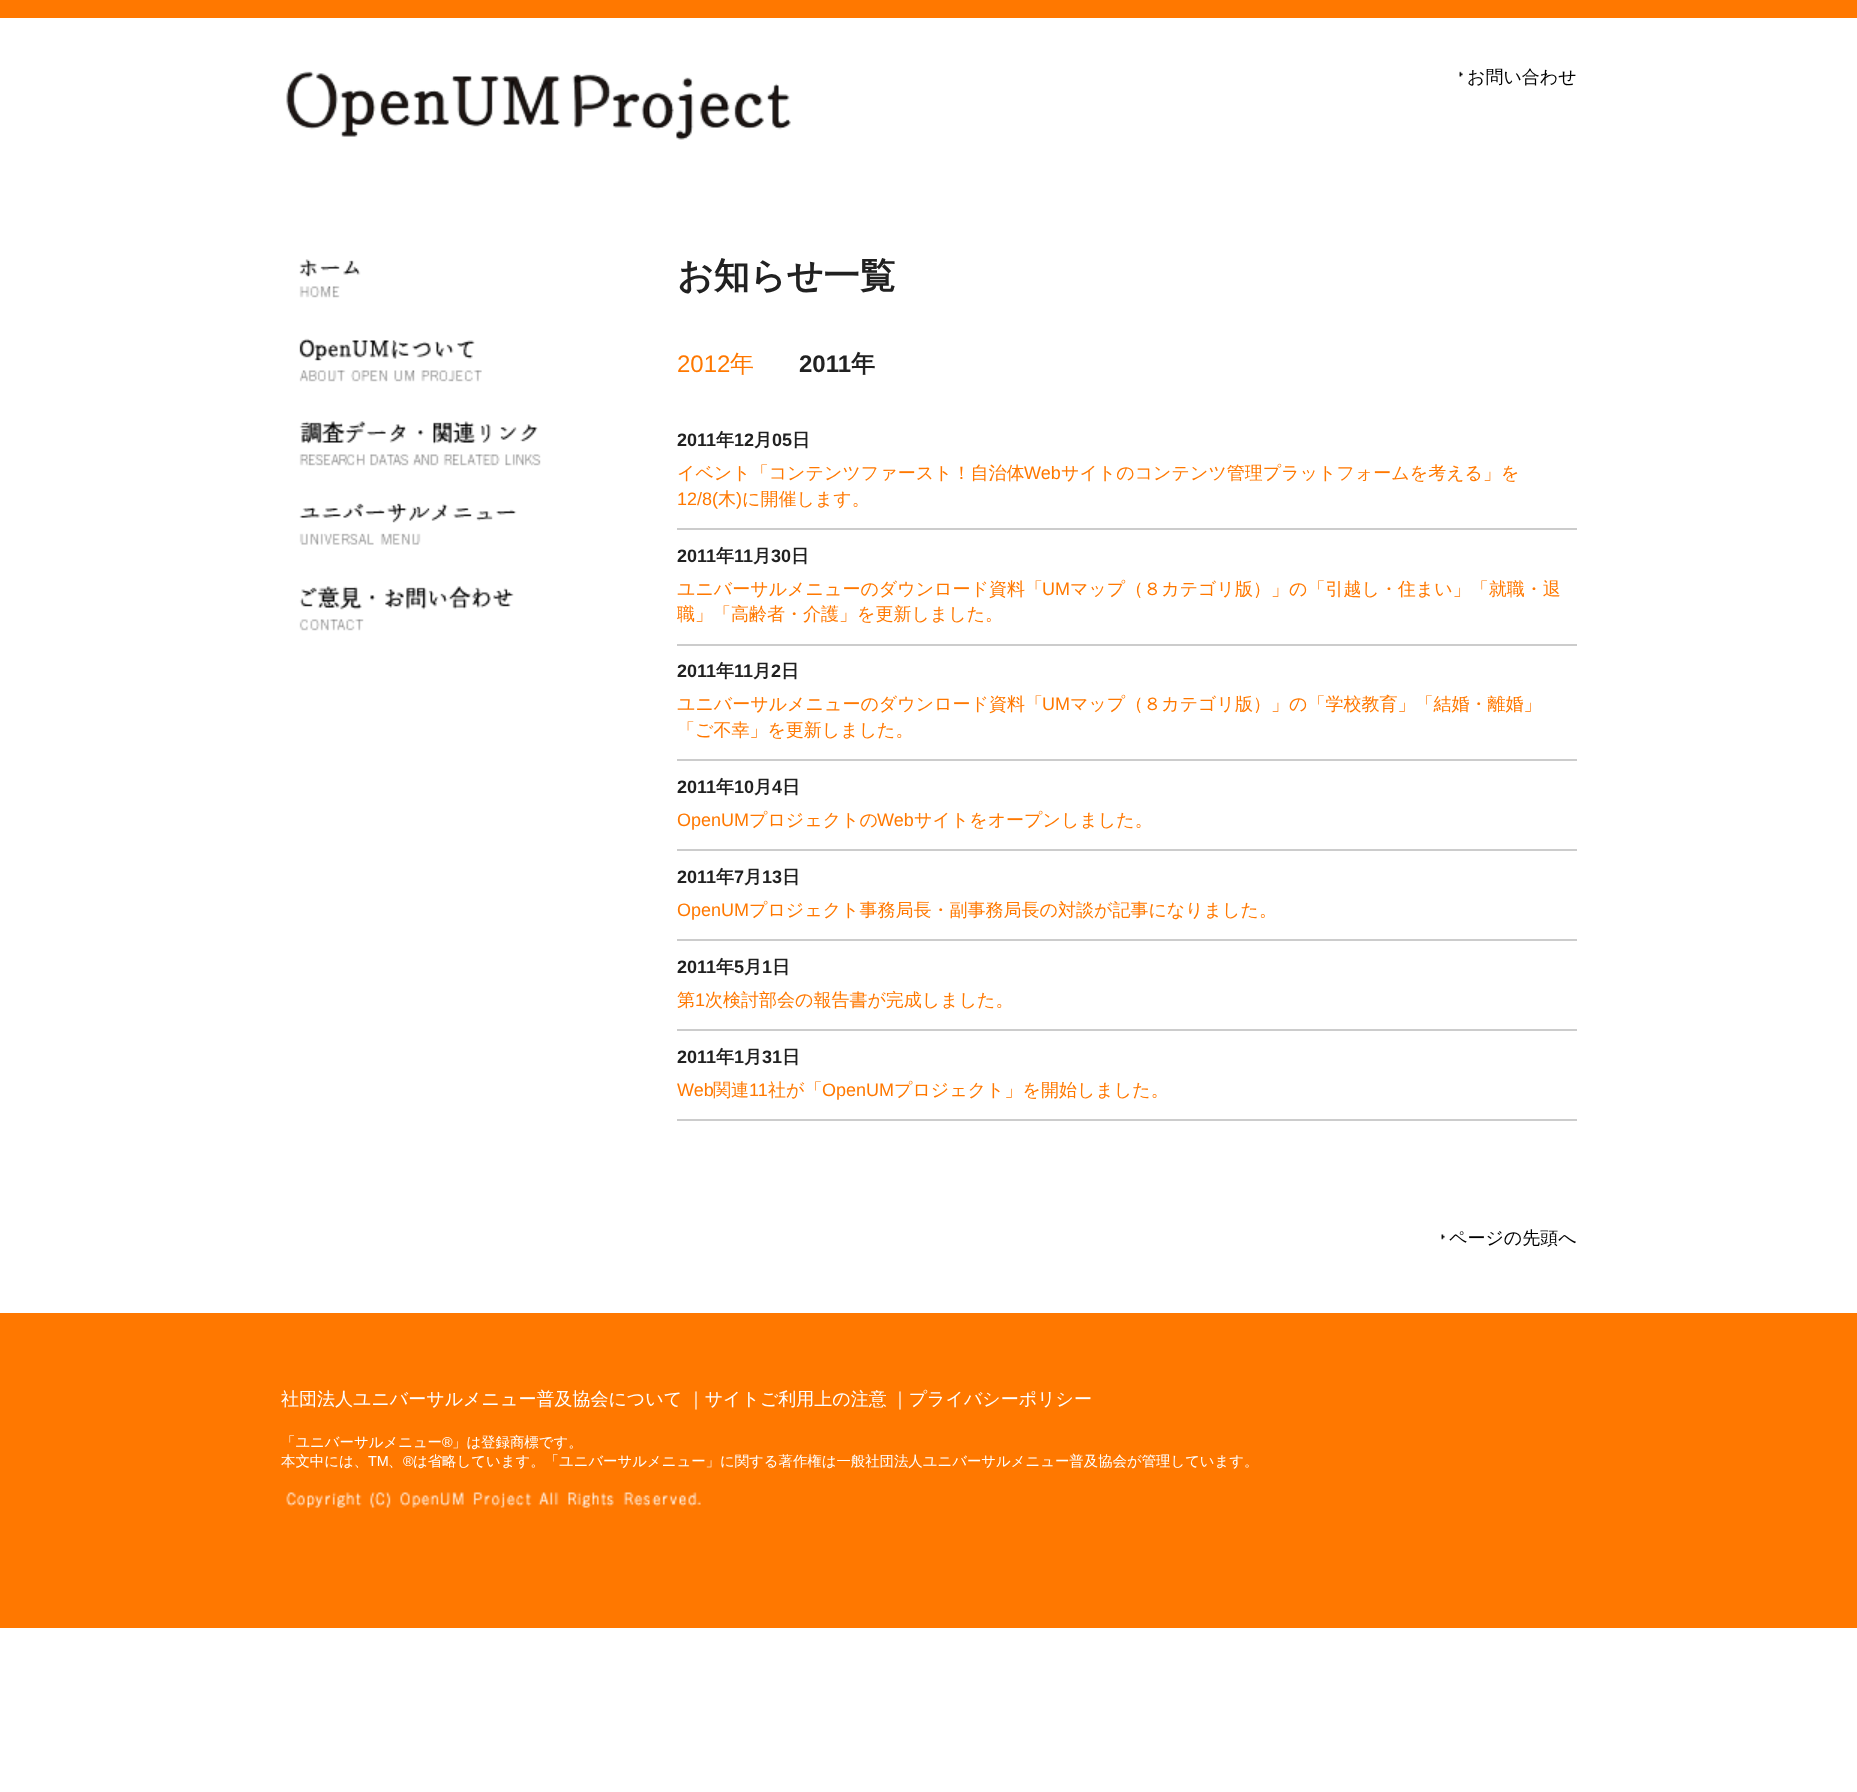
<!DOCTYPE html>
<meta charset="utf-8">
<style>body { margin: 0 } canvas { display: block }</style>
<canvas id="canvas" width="1857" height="1792"></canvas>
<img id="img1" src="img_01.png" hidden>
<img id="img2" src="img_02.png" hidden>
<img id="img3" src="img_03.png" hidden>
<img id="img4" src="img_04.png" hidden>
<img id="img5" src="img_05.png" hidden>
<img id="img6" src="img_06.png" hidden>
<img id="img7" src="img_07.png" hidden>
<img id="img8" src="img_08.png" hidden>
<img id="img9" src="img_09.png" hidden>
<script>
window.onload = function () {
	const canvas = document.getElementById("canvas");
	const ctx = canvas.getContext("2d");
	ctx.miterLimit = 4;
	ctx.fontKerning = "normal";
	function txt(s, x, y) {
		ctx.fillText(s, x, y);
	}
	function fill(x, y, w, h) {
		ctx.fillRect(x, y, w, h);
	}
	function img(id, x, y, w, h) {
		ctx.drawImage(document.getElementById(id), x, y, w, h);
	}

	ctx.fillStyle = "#FFFFFF";
	fill(0, 0, 1857, 1792);
	ctx.fillStyle = "#FF7800";
	fill(0, 0, 1857, 18);
	img("img1", 286, 71, 505, 69);
	img("img2", 1459, 71, 4, 6);
	img("img3", 299, 259, 62, 39);
	img("img4", 299, 338, 183, 44);
	img("img5", 299, 421, 242, 45);
	img("img6", 299, 503, 218, 42);
	img("img7", 299, 586, 215, 45);
	ctx.fillStyle = "#CCCCCC";
	fill(677, 528, 900, 2);
	fill(677, 644, 900, 2);
	fill(677, 759, 900, 2);
	fill(677, 849, 900, 2);
	fill(677, 939, 900, 2);
	fill(677, 1029, 900, 2);
	fill(677, 1119, 900, 2);
	img("img8", 1441, 1234, 4, 6);
	ctx.fillStyle = "#FF7800";
	fill(0, 1313, 1857, 315);
	img("img9", 286, 1492, 415, 16);
	ctx.font = "500 18px WenQuanYi Zen Hei";
	ctx.fillStyle = "#000000";
	txt("お問い合わせ", 1467, 83);
	ctx.font = "bold 36px WenQuanYi Zen Hei";
	ctx.fillStyle = "#212121";
	txt("お知らせ一覧", 677, 288);
	ctx.font = "24px Liberation Sans";
	ctx.fillStyle = "#FF7800";
	txt("2012", 677, 372);
	ctx.font = "500 24px WenQuanYi Zen Hei";
	txt("年", 730, 372);
	ctx.font = "bold 24px Liberation Sans";
	ctx.fillStyle = "#212121";
	txt("2011", 799, 372);
	ctx.font = "bold 24px WenQuanYi Zen Hei";
	txt("年", 851, 372);
	ctx.font = "bold 18px Liberation Sans";
	txt("2011", 677, 446);
	ctx.font = "bold 18px WenQuanYi Zen Hei";
	txt("年", 716, 446);
	ctx.font = "bold 18px Liberation Sans";
	txt("12", 734, 446);
	ctx.font = "bold 18px WenQuanYi Zen Hei";
	txt("月", 754, 446);
	ctx.font = "bold 18px Liberation Sans";
	txt("05", 772, 446);
	ctx.font = "bold 18px WenQuanYi Zen Hei";
	txt("日", 792, 446);
	ctx.font = "500 18px WenQuanYi Zen Hei";
	ctx.fillStyle = "#FF7800";
	txt("イベント「コンテンツファースト！自治体", 677, 479);
	ctx.font = "18px Liberation Sans";
	txt("Web", 1024, 479);
	ctx.font = "500 18px WenQuanYi Zen Hei";
	txt("サイトのコンテンツ管理プラットフォームを考える」を", 1061, 479);
	ctx.font = "18px Liberation Sans";
	txt("12/8(", 677, 505);
	ctx.font = "500 18px WenQuanYi Zen Hei";
	txt("木", 718, 505);
	ctx.font = "18px Liberation Sans";
	txt(")", 736, 505);
	ctx.font = "500 18px WenQuanYi Zen Hei";
	txt("に開催します。", 742, 505);
	ctx.font = "bold 18px Liberation Sans";
	ctx.fillStyle = "#212121";
	txt("2011", 677, 562);
	ctx.font = "bold 18px WenQuanYi Zen Hei";
	txt("年", 716, 562);
	ctx.font = "bold 18px Liberation Sans";
	txt("11", 734, 562);
	ctx.font = "bold 18px WenQuanYi Zen Hei";
	txt("月", 753, 562);
	ctx.font = "bold 18px Liberation Sans";
	txt("30", 771, 562);
	ctx.font = "bold 18px WenQuanYi Zen Hei";
	txt("日", 791, 562);
	ctx.font = "500 18px WenQuanYi Zen Hei";
	ctx.fillStyle = "#FF7800";
	txt("ユニバーサルメニューのダウンロード資料「", 677, 595);
	ctx.font = "18px Liberation Sans";
	txt("UM", 1042, 595);
	ctx.font = "500 18px WenQuanYi Zen Hei";
	txt("マップ（８カテゴリ版）」の「引越し・住まい」「就職・退", 1070, 595);
	txt("職」「高齢者・介護」を更新しました。", 677, 620);
	ctx.font = "bold 18px Liberation Sans";
	ctx.fillStyle = "#212121";
	txt("2011", 677, 677);
	ctx.font = "bold 18px WenQuanYi Zen Hei";
	txt("年", 716, 677);
	ctx.font = "bold 18px Liberation Sans";
	txt("11", 734, 677);
	ctx.font = "bold 18px WenQuanYi Zen Hei";
	txt("月", 753, 677);
	ctx.font = "bold 18px Liberation Sans";
	txt("2", 771, 677);
	ctx.font = "bold 18px WenQuanYi Zen Hei";
	txt("日", 781, 677);
	ctx.font = "500 18px WenQuanYi Zen Hei";
	ctx.fillStyle = "#FF7800";
	txt("ユニバーサルメニューのダウンロード資料「", 677, 710);
	ctx.font = "18px Liberation Sans";
	txt("UM", 1042, 710);
	ctx.font = "500 18px WenQuanYi Zen Hei";
	txt("マップ（８カテゴリ版）」の「学校教育」「結婚・離婚」", 1070, 710);
	txt("「ご不幸」を更新しました。", 677, 736);
	ctx.font = "bold 18px Liberation Sans";
	ctx.fillStyle = "#212121";
	txt("2011", 677, 793);
	ctx.font = "bold 18px WenQuanYi Zen Hei";
	txt("年", 716, 793);
	ctx.font = "bold 18px Liberation Sans";
	txt("10", 734, 793);
	ctx.font = "bold 18px WenQuanYi Zen Hei";
	txt("月", 754, 793);
	ctx.font = "bold 18px Liberation Sans";
	txt("4", 772, 793);
	ctx.font = "bold 18px WenQuanYi Zen Hei";
	txt("日", 782, 793);
	ctx.font = "18px Liberation Sans";
	ctx.fillStyle = "#FF7800";
	txt("OpenUM", 677, 826);
	ctx.font = "500 18px WenQuanYi Zen Hei";
	txt("プロジェクトの", 749, 826);
	ctx.font = "18px Liberation Sans";
	txt("Web", 877, 826);
	ctx.font = "500 18px WenQuanYi Zen Hei";
	txt("サイトをオープンしました。", 914, 826);
	ctx.font = "bold 18px Liberation Sans";
	ctx.fillStyle = "#212121";
	txt("2011", 677, 883);
	ctx.font = "bold 18px WenQuanYi Zen Hei";
	txt("年", 716, 883);
	ctx.font = "bold 18px Liberation Sans";
	txt("7", 734, 883);
	ctx.font = "bold 18px WenQuanYi Zen Hei";
	txt("月", 744, 883);
	ctx.font = "bold 18px Liberation Sans";
	txt("13", 762, 883);
	ctx.font = "bold 18px WenQuanYi Zen Hei";
	txt("日", 782, 883);
	ctx.font = "18px Liberation Sans";
	ctx.fillStyle = "#FF7800";
	txt("OpenUM", 677, 916);
	ctx.font = "500 18px WenQuanYi Zen Hei";
	txt("プロジェクト事務局長・副事務局長の対談が記事になりました。", 749, 916);
	ctx.font = "bold 18px Liberation Sans";
	ctx.fillStyle = "#212121";
	txt("2011", 677, 973);
	ctx.font = "bold 18px WenQuanYi Zen Hei";
	txt("年", 716, 973);
	ctx.font = "bold 18px Liberation Sans";
	txt("5", 734, 973);
	ctx.font = "bold 18px WenQuanYi Zen Hei";
	txt("月", 744, 973);
	ctx.font = "bold 18px Liberation Sans";
	txt("1", 762, 973);
	ctx.font = "bold 18px WenQuanYi Zen Hei";
	txt("日", 772, 973);
	ctx.font = "500 18px WenQuanYi Zen Hei";
	ctx.fillStyle = "#FF7800";
	txt("第", 677, 1006);
	ctx.font = "18px Liberation Sans";
	txt("1", 695, 1006);
	ctx.font = "500 18px WenQuanYi Zen Hei";
	txt("次検討部会の報告書が完成しました。", 705, 1006);
	ctx.font = "bold 18px Liberation Sans";
	ctx.fillStyle = "#212121";
	txt("2011", 677, 1063);
	ctx.font = "bold 18px WenQuanYi Zen Hei";
	txt("年", 716, 1063);
	ctx.font = "bold 18px Liberation Sans";
	txt("1", 734, 1063);
	ctx.font = "bold 18px WenQuanYi Zen Hei";
	txt("月", 744, 1063);
	ctx.font = "bold 18px Liberation Sans";
	txt("31", 762, 1063);
	ctx.font = "bold 18px WenQuanYi Zen Hei";
	txt("日", 782, 1063);
	ctx.font = "18px Liberation Sans";
	ctx.fillStyle = "#FF7800";
	txt("Web", 677, 1096);
	ctx.font = "500 18px WenQuanYi Zen Hei";
	txt("関連", 713, 1096);
	ctx.font = "18px Liberation Sans";
	txt("11", 749, 1096);
	ctx.font = "500 18px WenQuanYi Zen Hei";
	txt("社が「", 768, 1096);
	ctx.font = "18px Liberation Sans";
	txt("OpenUM", 822, 1096);
	ctx.font = "500 18px WenQuanYi Zen Hei";
	txt("プロジェクト」を開始しました。", 894, 1096);
	ctx.fillStyle = "#000000";
	txt("ページの先頭へ", 1449, 1244);
	ctx.fillStyle = "#FFFFFF";
	txt("社団法人ユニバーサルメニュー普及協会について", 281, 1405);
	txt("｜サイトご利用上の注意", 687, 1405);
	txt("｜プライバシーポリシー", 891, 1405);
	ctx.font = "500 14.4px WenQuanYi Zen Hei";
	txt("「ユニバーサルメニュー", 281, 1447);
	ctx.font = "14.4px Liberation Sans";
	txt("®", 442, 1447);
	ctx.font = "500 14.4px WenQuanYi Zen Hei";
	txt("」は登録商標です。", 452, 1447);
	txt("本文中には、", 281, 1466);
	ctx.font = "14.4px Liberation Sans";
	txt("TM", 368, 1466);
	ctx.font = "500 14.4px WenQuanYi Zen Hei";
	txt("、", 388, 1466);
	ctx.font = "14.4px Liberation Sans";
	txt("®", 403, 1466);
	ctx.font = "500 14.4px WenQuanYi Zen Hei";
	txt("は省略しています。「ユニバーサルメニュー」に関する著作権は一般社団法人ユニバーサルメニュー普及協会が管理しています。", 413, 1466);
};
</script>
